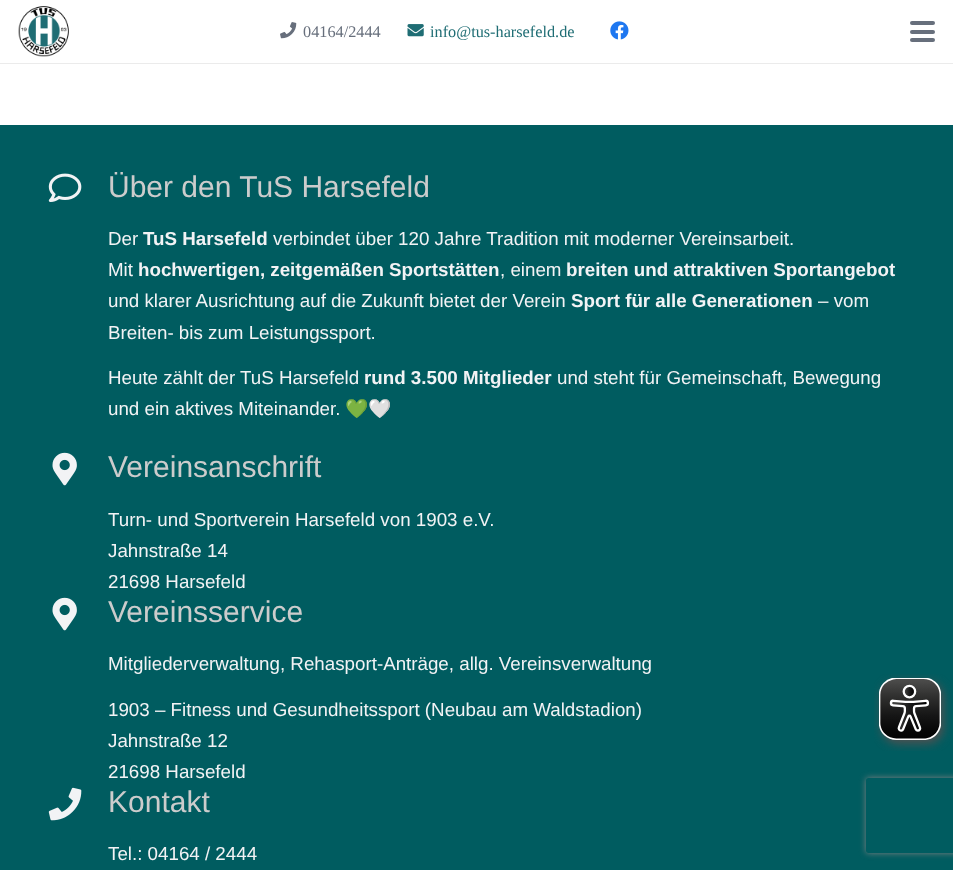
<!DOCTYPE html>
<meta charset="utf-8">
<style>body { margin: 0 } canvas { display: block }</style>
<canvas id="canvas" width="953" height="870"></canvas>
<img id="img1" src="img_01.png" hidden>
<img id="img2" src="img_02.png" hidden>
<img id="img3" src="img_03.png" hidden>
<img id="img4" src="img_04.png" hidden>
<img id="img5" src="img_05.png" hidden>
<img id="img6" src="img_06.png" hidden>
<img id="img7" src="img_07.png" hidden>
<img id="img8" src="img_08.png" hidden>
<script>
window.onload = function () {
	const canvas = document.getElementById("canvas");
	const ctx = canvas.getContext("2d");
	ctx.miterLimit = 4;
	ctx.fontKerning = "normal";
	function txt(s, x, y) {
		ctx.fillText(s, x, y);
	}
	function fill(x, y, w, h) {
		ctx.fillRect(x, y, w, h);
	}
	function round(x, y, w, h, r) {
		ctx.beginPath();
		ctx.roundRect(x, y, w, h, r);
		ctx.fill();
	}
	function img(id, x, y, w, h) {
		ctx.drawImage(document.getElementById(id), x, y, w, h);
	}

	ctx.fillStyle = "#FFFFFF";
	fill(0, 0, 953, 870);
	ctx.fillStyle = "rgba(0, 0, 0, 0.08)";
	ctx.beginPath();
	ctx.moveTo(0, 62);
	ctx.lineTo(0, 64);
	ctx.lineTo(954, 64);
	ctx.lineTo(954, 1);
	ctx.lineTo(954, 62);
	ctx.closePath();
	ctx.fill();
	ctx.fillStyle = "#FFFFFF";
	fill(0, 62, 953, 1);
	img("img1", 18, 6, 51, 51);
	img("img2", 280, 22, 17, 17);
	img("img3", 407, 24, 17, 13);
	img("img4", 610, 21, 19, 19);
	ctx.fillStyle = "#676F7C";
	round(910, 30, 25, 4, 2);
	round(910, 21, 25, 4, 2);
	round(910, 38, 25, 4, 2);
	ctx.fillStyle = "#005C60";
	fill(0, 125, 953, 745);
	img("img5", 48, 173, 34, 29);
	img("img6", 52, 452, 25, 34);
	img("img6", 52, 597, 25, 34);
	img("img7", 48, 787, 34, 34);
	img("img8", 874, 674, 77, 77);
	ctx.save();
	ctx.beginPath();
	ctx.moveTo(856, 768);
	ctx.lineTo(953, 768);
	ctx.lineTo(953, 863);
	ctx.lineTo(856, 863);
	ctx.closePath();
	ctx.moveTo(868.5, 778);
	ctx.lineTo(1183.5, 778);
	ctx.bezierCurveTo(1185, 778, 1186, 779, 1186, 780.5);
	ctx.lineTo(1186, 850.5);
	ctx.bezierCurveTo(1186, 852, 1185, 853, 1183.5, 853);
	ctx.lineTo(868.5, 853);
	ctx.bezierCurveTo(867, 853, 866, 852, 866, 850.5);
	ctx.lineTo(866, 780.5);
	ctx.bezierCurveTo(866, 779, 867, 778, 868.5, 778);
	ctx.closePath();
	ctx.clip("evenodd");
	ctx.fillStyle = "#808080";
	ctx.filter = "blur(3px)";
	ctx.beginPath();
	ctx.roundRect(866, 778, 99, 75, 2.5);
	ctx.fill();
	ctx.filter = "none";
	ctx.restore();
	ctx.font = "16.25px Liberation Serif";
	ctx.fillStyle = "#676F7C";
	txt("04164/2444", 303, 37);
	ctx.fillStyle = "#1F6D74";
	txt("info@tus-harsefeld.de", 430, 37);
	ctx.font = "30px Liberation Sans";
	ctx.fillStyle = "#CCCCCC";
	txt("Über den TuS Harsefeld", 108, 197);
	ctx.font = "18.75px Liberation Sans";
	ctx.fillStyle = "#F2F3F5";
	txt("Der", 108, 245);
	ctx.font = "bold 18.75px Liberation Sans";
	txt("TuS Harsefeld", 143, 245);
	ctx.font = "18.75px Liberation Sans";
	txt("verbindet über 120 Jahre Tradition mit moderner Vereinsarbeit.", 273, 245);
	txt("Mit", 108, 276);
	ctx.font = "bold 18.75px Liberation Sans";
	txt("hochwertigen, zeitgemäßen Sportstätten", 138, 276);
	ctx.font = "18.75px Liberation Sans";
	txt(", einem", 500, 276);
	ctx.font = "bold 18.75px Liberation Sans";
	txt("breiten und attraktiven Sportangebot", 566, 276);
	ctx.font = "18.75px Liberation Sans";
	txt("und klarer Ausrichtung auf die Zukunft bietet der Verein", 108, 307);
	ctx.font = "bold 18.75px Liberation Sans";
	txt("Sport für alle Generationen", 571, 307);
	ctx.font = "18.75px Liberation Sans";
	txt("– vom", 818, 307);
	txt("Breiten- bis zum Leistungssport.", 108, 339);
	txt("Heute zählt der TuS Harsefeld", 108, 384);
	ctx.font = "bold 18.75px Liberation Sans";
	txt("rund 3.500 Mitglieder", 364, 384);
	ctx.font = "18.75px Liberation Sans";
	txt("und steht für Gemeinschaft, Bewegung", 557, 384);
	txt("und ein aktives Miteinander.", 108, 415);
	ctx.font = "18.75px Noto Color Emoji";
	txt("💚🤍", 345, 415);
	ctx.font = "30px Liberation Sans";
	ctx.fillStyle = "#CCCCCC";
	txt("Vereinsanschrift", 108, 477);
	ctx.font = "18.75px Liberation Sans";
	ctx.fillStyle = "#F2F3F5";
	txt("Turn- und Sportverein Harsefeld von 1903 e.V.", 108, 526);
	txt("Jahnstraße 14", 108, 557);
	txt("21698 Harsefeld", 108, 588);
	ctx.font = "30px Liberation Sans";
	ctx.fillStyle = "#CCCCCC";
	txt("Vereinsservice", 108, 622);
	ctx.font = "18.75px Liberation Sans";
	ctx.fillStyle = "#F2F3F5";
	txt("Mitgliederverwaltung, Rehasport-Anträge, allg. Vereinsverwaltung", 108, 670);
	txt("1903 – Fitness und Gesundheitssport (Neubau am Waldstadion)", 108, 716);
	txt("Jahnstraße 12", 108, 747);
	txt("21698 Harsefeld", 108, 778);
	ctx.font = "30px Liberation Sans";
	ctx.fillStyle = "#CCCCCC";
	txt("Kontakt", 108, 812);
	ctx.font = "18.75px Liberation Sans";
	ctx.fillStyle = "#F2F3F5";
	txt("Tel.: 04164 / 2444", 108, 860);
};
</script>
